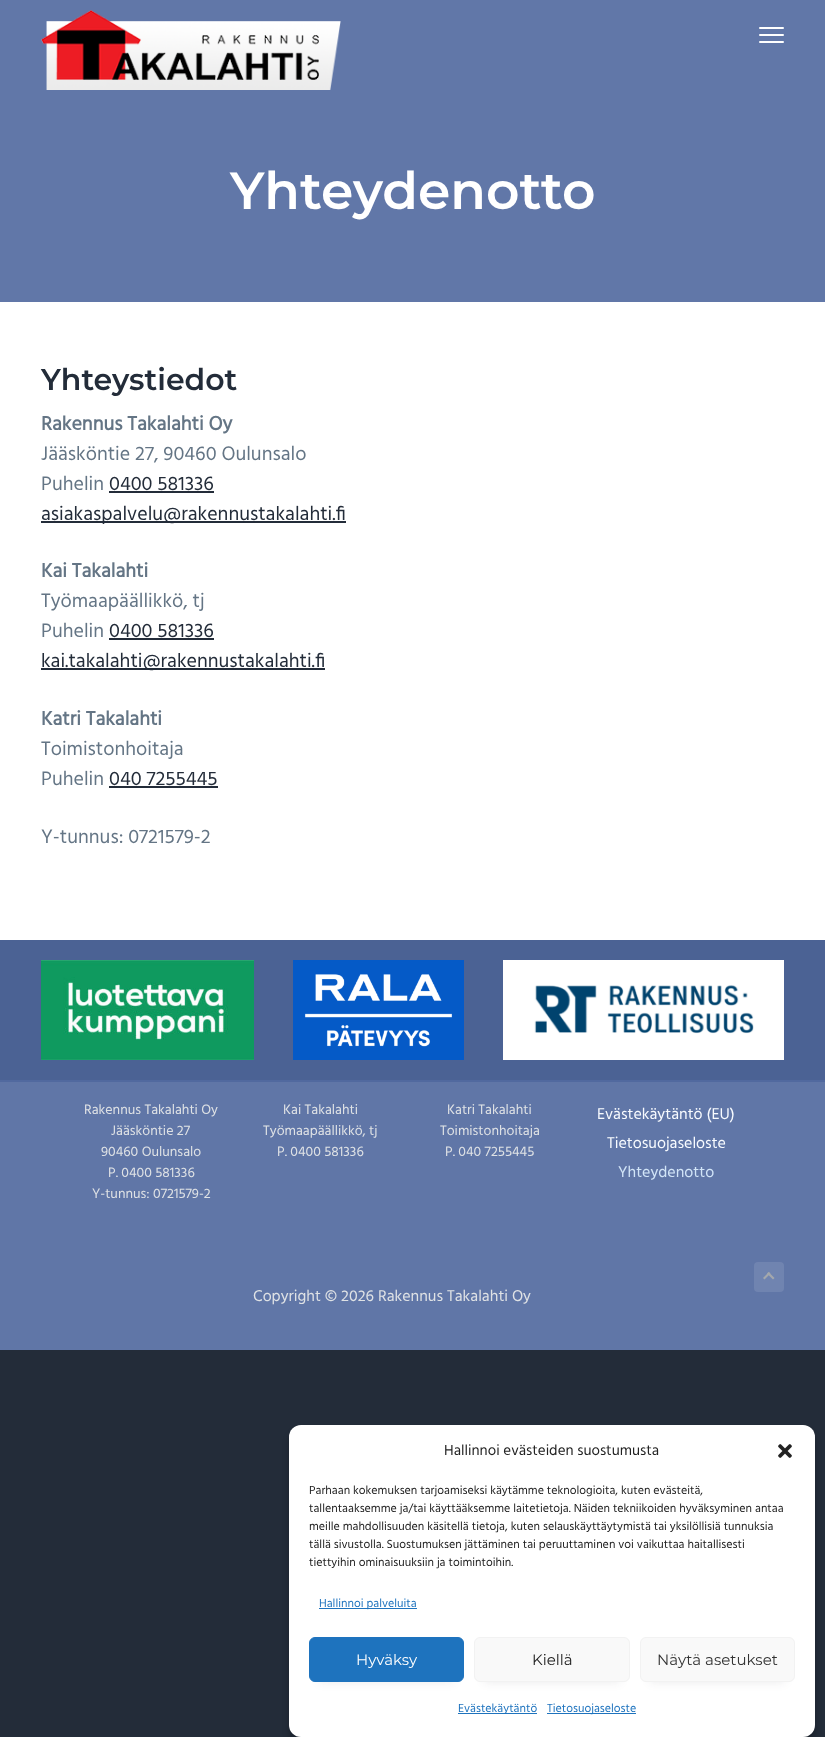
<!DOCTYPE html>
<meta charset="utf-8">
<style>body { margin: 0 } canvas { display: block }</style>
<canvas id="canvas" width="825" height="1737"></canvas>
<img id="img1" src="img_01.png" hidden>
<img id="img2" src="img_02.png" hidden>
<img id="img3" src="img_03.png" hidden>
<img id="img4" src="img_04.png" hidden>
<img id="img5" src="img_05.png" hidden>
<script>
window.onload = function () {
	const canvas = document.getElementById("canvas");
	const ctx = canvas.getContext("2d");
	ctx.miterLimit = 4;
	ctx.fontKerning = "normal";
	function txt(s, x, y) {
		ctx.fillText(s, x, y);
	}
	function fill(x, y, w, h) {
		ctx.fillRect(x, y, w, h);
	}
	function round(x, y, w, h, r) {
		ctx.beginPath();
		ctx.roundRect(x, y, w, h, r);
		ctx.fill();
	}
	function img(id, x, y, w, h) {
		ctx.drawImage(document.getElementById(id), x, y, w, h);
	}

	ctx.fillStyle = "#232C39";
	fill(0, 0, 825, 1737);
	ctx.fillStyle = "#FFFFFF";
	fill(0, 302, 825, 638);
	ctx.fillStyle = "#6177A8";
	fill(0, 0, 825, 302);
	img("img1", 41, 10, 300, 80);
	ctx.fillStyle = "#FFFFFF";
	round(759, 34, 25, 2, 1);
	round(759, 27, 25, 2, 1);
	round(759, 41, 25, 2, 1);
	ctx.fillStyle = "#232C39";
	fill(109, 491, 105, 2);
	fill(41, 521, 305, 2);
	fill(109, 638, 105, 2);
	fill(41, 668, 284, 2);
	fill(109, 786, 109, 2);
	ctx.fillStyle = "#6076A7";
	fill(0, 1082, 825, 268);
	ctx.fillStyle = "#51699F";
	fill(0, 1080, 825, 2);
	ctx.fillStyle = "#4B6294";
	fill(0, 940, 825, 140);
	img("img2", 41, 960, 213, 100);
	img("img3", 293, 960, 171, 100);
	img("img4", 503, 960, 281, 100);
	ctx.fillStyle = "#7084B0";
	round(754, 1262, 30, 30, 4);
	ctx.fillStyle = "#A4A8AC";
	ctx.beginPath();
	ctx.moveTo(763, 1278);
	ctx.lineTo(769, 1272);
	ctx.lineTo(770.5, 1273.5);
	ctx.lineTo(764.5, 1279.5);
	ctx.closePath();
	ctx.fill();
	ctx.beginPath();
	ctx.moveTo(768.5, 1272);
	ctx.lineTo(774.5, 1278);
	ctx.lineTo(773, 1279.5);
	ctx.lineTo(767, 1273.5);
	ctx.closePath();
	ctx.fill();
	ctx.fillStyle = "rgba(0, 0, 0, 0.23)";
	ctx.filter = "blur(3px)";
	ctx.beginPath();
	ctx.roundRect(289, 1431, 526, 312, 12);
	ctx.fill();
	ctx.filter = "none";
	ctx.fillStyle = "#FFFFFF";
	round(289, 1425, 526, 312, 12);
	img("img5", 778, 1444, 14, 14);
	ctx.fillStyle = "#1E73BE";
	fill(319, 1608, 98, 1);
	ctx.fillStyle = "rgba(35, 44, 57, 0.1)";
	ctx.filter = "blur(5px)";
	ctx.beginPath();
	ctx.rect(319, 1657, 135, 25);
	ctx.fill();
	ctx.filter = "none";
	ctx.fillStyle = "#1E73BE";
	ctx.beginPath();
	ctx.roundRect(309.5, 1637.5, 154, 44, 5.5);
	ctx.fill();
	ctx.strokeStyle = "#1E73BE";
	ctx.stroke();
	ctx.fillStyle = "rgba(35, 44, 57, 0.1)";
	ctx.filter = "blur(5px)";
	ctx.beginPath();
	ctx.rect(484, 1657, 136, 25);
	ctx.fill();
	ctx.filter = "none";
	ctx.fillStyle = "#F9F9F9";
	ctx.beginPath();
	ctx.roundRect(474.5, 1637.5, 155, 44, 5.5);
	ctx.fill();
	ctx.strokeStyle = "#F2F2F2";
	ctx.stroke();
	ctx.fillStyle = "rgba(35, 44, 57, 0.1)";
	ctx.filter = "blur(5px)";
	ctx.beginPath();
	ctx.rect(650, 1657, 135, 25);
	ctx.fill();
	ctx.filter = "none";
	ctx.fillStyle = "#F9F9F9";
	ctx.beginPath();
	ctx.roundRect(640.5, 1637.5, 154, 44, 5.5);
	ctx.fill();
	ctx.stroke();
	ctx.fillStyle = "#1E73BE";
	fill(458, 1713, 79, 1);
	fill(547, 1713, 89, 1);
	ctx.font = "600 52px Montserrat";
	ctx.fillStyle = "#FFFFFF";
	txt("Yhteydenotto", 230, 209);
	ctx.font = "600 30px Montserrat";
	ctx.fillStyle = "#232C39";
	txt("Yhteystiedot", 41, 390);
	ctx.font = "bold 20px Hind";
	ctx.fillStyle = "#647585";
	txt("Rakennus Takalahti Oy", 41, 430);
	ctx.font = "20px Hind";
	txt("Jääsköntie 27, 90460 Oulunsalo", 41, 460);
	txt("Puhelin", 41, 490);
	ctx.fillStyle = "#232C39";
	txt("0400 581336", 109, 490);
	txt("asiakaspalvelu@rakennustakalahti.fi", 41, 520);
	ctx.font = "bold 20px Hind";
	ctx.fillStyle = "#647585";
	txt("Kai Takalahti", 41, 577);
	ctx.font = "20px Hind";
	txt("Työmaapäällikkö, tj", 41, 607);
	txt("Puhelin", 41, 637);
	ctx.fillStyle = "#232C39";
	txt("0400 581336", 109, 637);
	txt("kai.takalahti@rakennustakalahti.fi", 41, 667);
	ctx.font = "bold 20px Hind";
	ctx.fillStyle = "#647585";
	txt("Katri Takalahti", 41, 725);
	ctx.font = "20px Hind";
	txt("Toimistonhoitaja", 41, 755);
	txt("Puhelin", 41, 785);
	ctx.fillStyle = "#232C39";
	txt("040 7255445", 109, 785);
	ctx.fillStyle = "#647585";
	txt("Y-tunnus: 0721579-2", 41, 843);
	ctx.font = "14px Hind";
	ctx.fillStyle = "#DFE2E5";
	txt("Rakennus Takalahti Oy", 84, 1114);
	txt("Jääsköntie 27", 111, 1135);
	txt("90460 Oulunsalo", 101, 1156);
	txt("P. 0400 581336", 108, 1177);
	txt("Y-tunnus: 0721579-2", 92, 1198);
	txt("Kai Takalahti", 283, 1114);
	txt("Työmaapäällikkö, tj", 263, 1135);
	txt("P. 0400 581336", 277, 1156);
	txt("Katri Takalahti", 447, 1114);
	txt("Toimistonhoitaja", 440, 1135);
	txt("P. 040 7255445", 445, 1156);
	ctx.font = "16px Hind";
	ctx.fillStyle = "#F8FBFF";
	txt("Evästekäytäntö (EU)", 597, 1119);
	txt("Tietosuojaseloste", 607, 1148);
	ctx.fillStyle = "#D2E5F8";
	txt("Yhteydenotto", 618, 1177);
	ctx.fillStyle = "#DFE2E5";
	txt("Copyright © 2026 Rakennus Takalahti Oy", 253, 1301);
	ctx.font = "15px Hind";
	ctx.fillStyle = "#222222";
	txt("Hallinnoi evästeiden suostumusta", 444, 1455);
	ctx.font = "12px Hind";
	txt("Parhaan kokemuksen tarjoamiseksi käytämme teknologioita, kuten evästeitä,", 309, 1494);
	txt("tallentaaksemme ja/tai käyttääksemme laitetietoja. Näiden tekniikoiden hyväksyminen antaa", 309, 1512);
	txt("meille mahdollisuuden käsitellä tietoja, kuten selauskäyttäytymistä tai yksilöllisiä tunnuksia", 309, 1530);
	txt("tällä sivustolla. Suostumuksen jättäminen tai peruuttaminen voi vaikuttaa haitallisesti", 309, 1548);
	txt("tiettyihin ominaisuuksiin ja toimintoihin.", 309, 1566);
	ctx.fillStyle = "#1E73BE";
	txt("Hallinnoi palveluita", 319, 1607);
	ctx.font = "15px Montserrat";
	ctx.fillStyle = "#FFFFFF";
	txt("Hyväksy", 356, 1665);
	ctx.fillStyle = "#222222";
	txt("Kiellä", 532, 1665);
	ctx.fillStyle = "#333333";
	txt("Näytä asetukset", 657, 1665);
	ctx.font = "12px Hind";
	ctx.fillStyle = "#1E73BE";
	txt("Evästekäytäntö", 458, 1712);
	txt("Tietosuojaseloste", 547, 1712);
};
</script>
